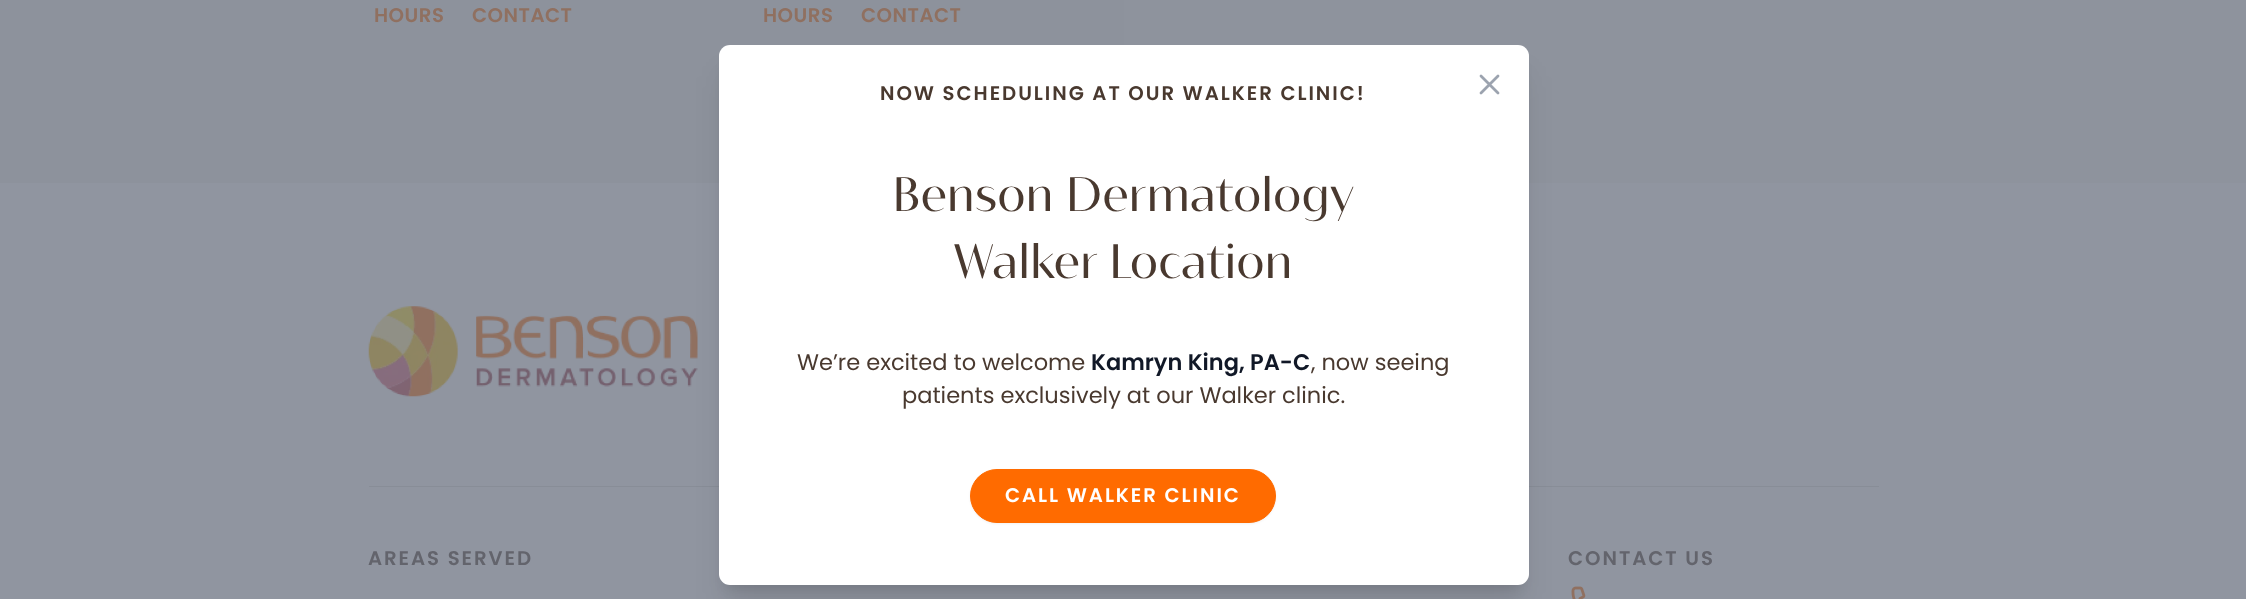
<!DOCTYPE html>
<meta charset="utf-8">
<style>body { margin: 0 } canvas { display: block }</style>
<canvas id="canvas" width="2246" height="599"></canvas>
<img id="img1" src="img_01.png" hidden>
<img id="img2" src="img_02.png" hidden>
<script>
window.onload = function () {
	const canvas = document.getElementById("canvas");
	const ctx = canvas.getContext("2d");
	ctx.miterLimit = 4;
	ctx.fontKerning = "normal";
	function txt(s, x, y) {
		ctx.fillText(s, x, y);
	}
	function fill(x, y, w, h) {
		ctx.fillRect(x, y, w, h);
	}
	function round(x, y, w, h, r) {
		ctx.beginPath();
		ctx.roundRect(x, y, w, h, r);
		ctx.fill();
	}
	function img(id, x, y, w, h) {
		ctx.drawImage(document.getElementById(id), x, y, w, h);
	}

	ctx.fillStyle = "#9095A0";
	fill(0, 0, 2246, 599);
	ctx.fillStyle = "#8E939D";
	fill(1124, 0, 1122, 183);
	ctx.fillStyle = "#8D929C";
	fill(0, 0, 1124, 183);
	ctx.fillStyle = "#888D97";
	fill(369, 486, 1510, 1);
	img("img1", 368, 306, 330, 91);
	img("img2", 1571, 586, 15, 13);
	ctx.fillStyle = "rgba(0, 0, 0, 0.1)";
	ctx.filter = "blur(6px)";
	ctx.beginPath();
	ctx.roundRect(726, 63, 795, 525, 4);
	ctx.fill();
	ctx.filter = "none";
	ctx.filter = "blur(15.5px)";
	ctx.beginPath();
	ctx.roundRect(725, 76, 798, 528, 5);
	ctx.fill();
	ctx.filter = "none";
	ctx.fillStyle = "#FFFFFF";
	round(719, 45, 810, 540, 11);
	ctx.fillStyle = "rgba(0, 0, 0, 0.05)";
	ctx.filter = "blur(1px)";
	ctx.beginPath();
	ctx.roundRect(970, 470, 306, 54, 27);
	ctx.fill();
	ctx.filter = "none";
	ctx.fillStyle = "#FF6B00";
	ctx.beginPath();
	ctx.roundRect(970.5, 469.5, 305, 53, 26.5);
	ctx.fill();
	ctx.strokeStyle = "#FF6B00";
	ctx.stroke();
	ctx.beginPath();
	ctx.moveTo(1481, 93);
	ctx.lineTo(1498, 76);
	ctx.moveTo(1481, 76);
	ctx.lineTo(1498, 93);
	ctx.strokeStyle = "#9CA3AF";
	ctx.lineWidth = 2.8;
	ctx.lineCap = "round";
	ctx.lineJoin = "round";
	ctx.stroke();
	ctx.letterSpacing = "0.5px";
	ctx.font = "600 19.7px Poppins";
	ctx.fillStyle = "#907060";
	txt("HOURS", 374, 22);
	txt("CONTACT", 472, 22);
	txt("HOURS", 763, 22);
	txt("CONTACT", 861, 22);
	ctx.letterSpacing = "1.95px";
	ctx.fillStyle = "#63646C";
	txt("AREAS SERVED", 368, 565);
	txt("CONTACT US", 1568, 565);
	ctx.fillStyle = "#49392F";
	txt("NOW SCHEDULING AT OUR WALKER CLINIC!", 880, 100);
	ctx.letterSpacing = "0px";
	ctx.font = "45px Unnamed";
	txt("Benson Dermatology", 892, 211);
	txt("Walker Location", 953, 278);
	ctx.font = "22.5px Poppins";
	txt("We’re excited to welcome", 797, 370);
	ctx.font = "600 22.5px Poppins";
	ctx.fillStyle = "#111827";
	txt("Kamryn King, PA-C", 1091, 370);
	ctx.font = "22.5px Poppins";
	ctx.fillStyle = "#49392F";
	txt(", now seeing", 1311, 370);
	txt("patients exclusively at our Walker clinic.", 902, 403);
	ctx.letterSpacing = "1.95px";
	ctx.font = "600 19.7px Poppins";
	ctx.fillStyle = "#FFFFFF";
	txt("CALL WALKER CLINIC", 1005, 502);
};
</script>
